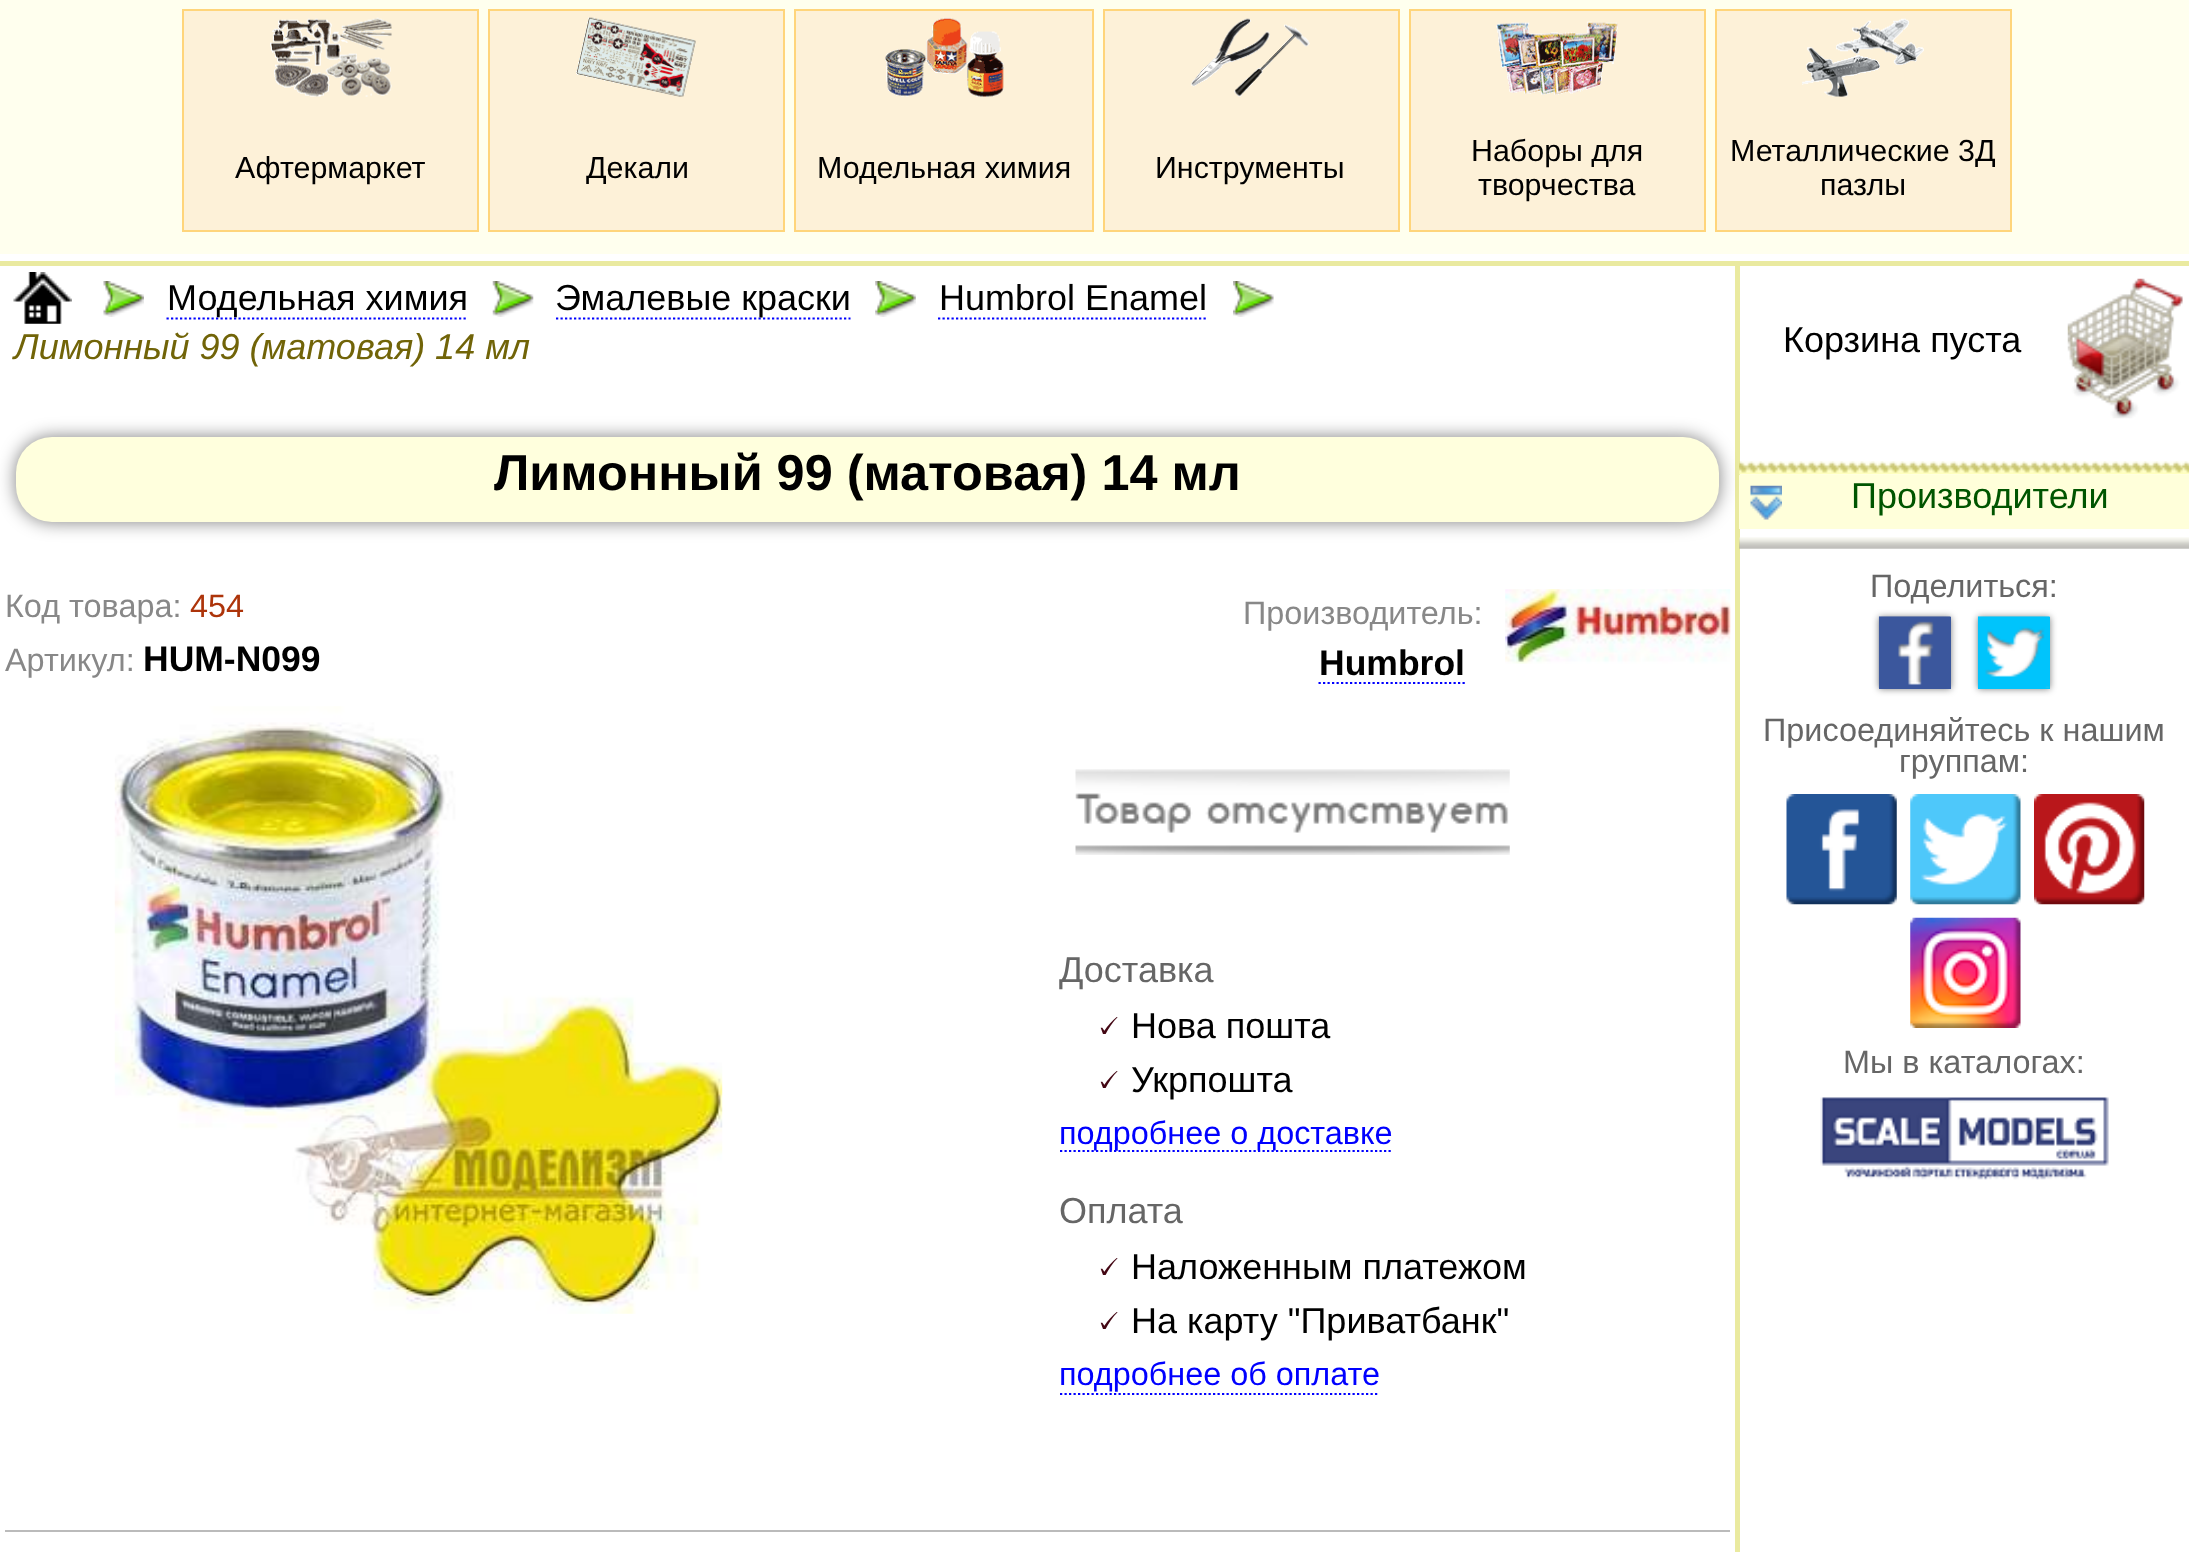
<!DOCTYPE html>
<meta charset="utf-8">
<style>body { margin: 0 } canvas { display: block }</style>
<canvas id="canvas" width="2189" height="1552"></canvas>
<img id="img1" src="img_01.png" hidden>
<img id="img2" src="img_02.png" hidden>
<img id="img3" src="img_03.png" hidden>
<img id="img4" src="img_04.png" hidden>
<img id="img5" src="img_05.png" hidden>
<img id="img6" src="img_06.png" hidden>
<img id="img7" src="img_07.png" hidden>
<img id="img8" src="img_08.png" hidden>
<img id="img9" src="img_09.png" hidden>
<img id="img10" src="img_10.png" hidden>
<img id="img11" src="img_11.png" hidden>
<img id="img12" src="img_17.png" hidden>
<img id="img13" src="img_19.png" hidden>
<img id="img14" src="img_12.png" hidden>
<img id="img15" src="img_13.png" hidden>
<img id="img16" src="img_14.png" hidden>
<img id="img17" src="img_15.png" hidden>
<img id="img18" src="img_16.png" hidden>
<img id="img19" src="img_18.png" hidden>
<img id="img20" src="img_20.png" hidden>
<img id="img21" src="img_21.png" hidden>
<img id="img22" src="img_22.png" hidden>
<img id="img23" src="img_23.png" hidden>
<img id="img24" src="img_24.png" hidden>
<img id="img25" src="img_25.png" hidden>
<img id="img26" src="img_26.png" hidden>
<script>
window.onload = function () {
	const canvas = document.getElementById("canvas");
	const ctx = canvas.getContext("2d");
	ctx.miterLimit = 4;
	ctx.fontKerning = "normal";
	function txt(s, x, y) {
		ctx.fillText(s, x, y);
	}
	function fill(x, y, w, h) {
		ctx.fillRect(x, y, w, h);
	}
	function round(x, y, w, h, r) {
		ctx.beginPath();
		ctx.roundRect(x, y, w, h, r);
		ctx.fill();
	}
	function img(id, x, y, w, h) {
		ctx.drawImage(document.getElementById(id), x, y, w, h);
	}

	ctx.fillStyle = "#FFFFFF";
	fill(0, 0, 2189, 1552);
	ctx.fillStyle = "#FFFFEE";
	fill(0, 0, 2189, 254);
	ctx.fillStyle = "#FDF1D8";
	ctx.beginPath();
	ctx.rect(183, 10, 295, 221);
	ctx.fill();
	ctx.strokeStyle = "#FFD57B";
	ctx.lineWidth = 2;
	ctx.stroke();
	img("img1", 270, 17, 122, 80);
	ctx.beginPath();
	ctx.rect(489, 10, 295, 221);
	ctx.fill();
	ctx.stroke();
	img("img2", 576, 17, 120, 80);
	ctx.beginPath();
	ctx.rect(795, 10, 298, 221);
	ctx.fill();
	ctx.stroke();
	img("img3", 885, 17, 119, 80);
	ctx.beginPath();
	ctx.rect(1104, 10, 295, 221);
	ctx.fill();
	ctx.stroke();
	img("img4", 1191, 18, 119, 79);
	ctx.beginPath();
	ctx.rect(1410, 10, 295, 221);
	ctx.fill();
	ctx.stroke();
	img("img5", 1496, 21, 122, 74);
	ctx.beginPath();
	ctx.rect(1716, 10, 295, 221);
	ctx.fill();
	ctx.stroke();
	img("img6", 1802, 18, 122, 79);
	ctx.fillStyle = "#EAEAA0";
	fill(0, 261, 2189, 5);
	img("img7", 13, 272, 59, 52);
	img("img8", 103, 281, 41, 36);
	ctx.beginPath();
	ctx.moveTo(166.5, 318.5);
	ctx.lineTo(468, 318.5);
	ctx.strokeStyle = "#0000FF";
	ctx.lineWidth = 2.2;
	ctx.setLineDash([2.25, 2.25]);
	ctx.stroke();
	img("img9", 492, 281, 42, 36);
	ctx.beginPath();
	ctx.moveTo(556, 318.5);
	ctx.lineTo(850.5, 318.5);
	ctx.stroke();
	img("img10", 875, 281, 41, 36);
	ctx.beginPath();
	ctx.moveTo(938, 318.5);
	ctx.lineTo(1208, 318.5);
	ctx.stroke();
	img("img11", 1233, 281, 41, 36);
	fill(1735, 266, 5, 1286);
	img("img12", 1739, 461, 450, 14);
	ctx.fillStyle = "#FFFFDA";
	fill(1739, 475, 450, 54);
	img("img13", 1739, 537, 450, 12);
	ctx.fillStyle = "rgba(0, 0, 0, 0.5)";
	ctx.filter = "blur(9px)";
	ctx.beginPath();
	ctx.roundRect(16, 437, 1703, 85, 36);
	ctx.fill();
	ctx.filter = "none";
	ctx.fillStyle = "#FFFFDD";
	round(16, 437, 1703, 85, 36);
	ctx.beginPath();
	ctx.moveTo(1318.5, 683);
	ctx.lineTo(1465, 683);
	ctx.stroke();
	img("img14", 1505, 589, 226, 75);
	img("img15", 114, 706, 609, 608);
	img("img16", 1075, 769, 435, 86);
	img("img17", 1075, 793, 434, 40);
	ctx.beginPath();
	ctx.moveTo(1060, 1151);
	ctx.lineTo(1393, 1151);
	ctx.stroke();
	ctx.beginPath();
	ctx.moveTo(1060, 1394);
	ctx.lineTo(1379, 1394);
	ctx.stroke();
	ctx.fillStyle = "#BBBBBB";
	fill(5, 1530, 1725, 2);
	img("img18", 2067, 278, 116, 141);
	img("img19", 1750, 485, 32, 35);
	ctx.fillStyle = "rgba(0, 0, 0, 0.5)";
	ctx.filter = "blur(3.5px)";
	ctx.beginPath();
	ctx.rect(1879, 617, 72, 72);
	ctx.fill();
	ctx.filter = "none";
	ctx.fillStyle = "#3B579D";
	fill(1879, 617, 72, 72);
	img("img20", 1878, 616, 73, 72);
	ctx.fillStyle = "rgba(0, 0, 0, 0.5)";
	ctx.filter = "blur(3.5px)";
	ctx.beginPath();
	ctx.rect(1978, 617, 72, 72);
	ctx.fill();
	ctx.filter = "none";
	ctx.fillStyle = "#00C4FC";
	fill(1978, 617, 72, 72);
	img("img21", 1977, 616, 73, 72);
	img("img22", 1786, 794, 111, 111);
	img("img23", 1910, 794, 111, 111);
	img("img24", 2034, 794, 111, 111);
	img("img25", 1910, 917, 111, 111);
	img("img26", 1820, 1097, 289, 83);
	ctx.font = "30.4px Liberation Sans";
	ctx.fillStyle = "#000000";
	txt("Афтермаркет", 235, 178);
	txt("Декали", 586, 178);
	txt("Модельная химия", 817, 178);
	txt("Инструменты", 1155, 178);
	txt("Наборы для", 1471, 161);
	txt("творчества", 1478, 195);
	txt("Металлические 3Д", 1730, 161);
	txt("пазлы", 1820, 195);
	ctx.font = "36px Liberation Sans";
	txt("Модельная химия", 167, 310);
	txt("Эмалевые краски", 555, 310);
	txt("Humbrol Enamel", 939, 310);
	ctx.font = "italic 36px Liberation Sans";
	ctx.fillStyle = "#716408";
	txt("Лимонный 99 (матовая) 14 мл", 14, 359);
	ctx.font = "bold 50.4px Liberation Sans";
	ctx.fillStyle = "#000000";
	txt("Лимонный 99 (матовая) 14 мл", 494, 490);
	ctx.font = "32.4px Liberation Sans";
	ctx.fillStyle = "#888888";
	txt("Код товара:", 5, 617);
	ctx.fillStyle = "#AD340A";
	txt("454", 190, 617);
	ctx.fillStyle = "#888888";
	txt("Артикул:", 5, 671);
	ctx.font = "bold 35.5px Liberation Sans";
	ctx.fillStyle = "#000000";
	txt("HUM-N099", 143, 671);
	ctx.font = "32.4px Liberation Sans";
	ctx.fillStyle = "#888888";
	txt("Производитель:", 1243, 624);
	ctx.font = "bold 35.5px Liberation Sans";
	ctx.fillStyle = "#000000";
	txt("Humbrol", 1319, 675);
	ctx.font = "36px Liberation Sans";
	ctx.fillStyle = "#666666";
	txt("Доставка", 1059, 982);
	ctx.font = "36px FreeSerif";
	ctx.fillStyle = "#430613";
	txt("🗸", 1095, 1038);
	ctx.font = "36px Liberation Sans";
	ctx.fillStyle = "#000000";
	txt("Нова пошта", 1131, 1038);
	ctx.font = "36px FreeSerif";
	ctx.fillStyle = "#430613";
	txt("🗸", 1095, 1092);
	ctx.font = "36px Liberation Sans";
	ctx.fillStyle = "#000000";
	txt("Укрпошта", 1131, 1092);
	ctx.font = "32.4px Liberation Sans";
	ctx.fillStyle = "#0000FF";
	txt("подробнее о доставке", 1059, 1144);
	ctx.font = "36px Liberation Sans";
	ctx.fillStyle = "#666666";
	txt("Оплата", 1059, 1223);
	ctx.font = "36px FreeSerif";
	ctx.fillStyle = "#430613";
	txt("🗸", 1095, 1279);
	ctx.font = "36px Liberation Sans";
	ctx.fillStyle = "#000000";
	txt("Наложенным платежом", 1131, 1279);
	ctx.font = "36px FreeSerif";
	ctx.fillStyle = "#430613";
	txt("🗸", 1095, 1333);
	ctx.font = "36px Liberation Sans";
	ctx.fillStyle = "#000000";
	txt("На карту \"Приватбанк\"", 1131, 1333);
	ctx.font = "32.4px Liberation Sans";
	ctx.fillStyle = "#0000FF";
	txt("подробнее об оплате", 1059, 1385);
	ctx.font = "36px Liberation Sans";
	ctx.fillStyle = "#000000";
	txt("Корзина пуста", 1783, 352);
	ctx.fillStyle = "#005500";
	txt("Производители", 1851, 508);
	ctx.font = "32.4px Liberation Sans";
	ctx.fillStyle = "#666666";
	txt("Поделиться:", 1870, 597);
	txt("Присоединяйтесь к нашим", 1763, 741);
	txt("группам:", 1899, 772);
	txt("Мы в каталогах:", 1843, 1073);
};
</script>
